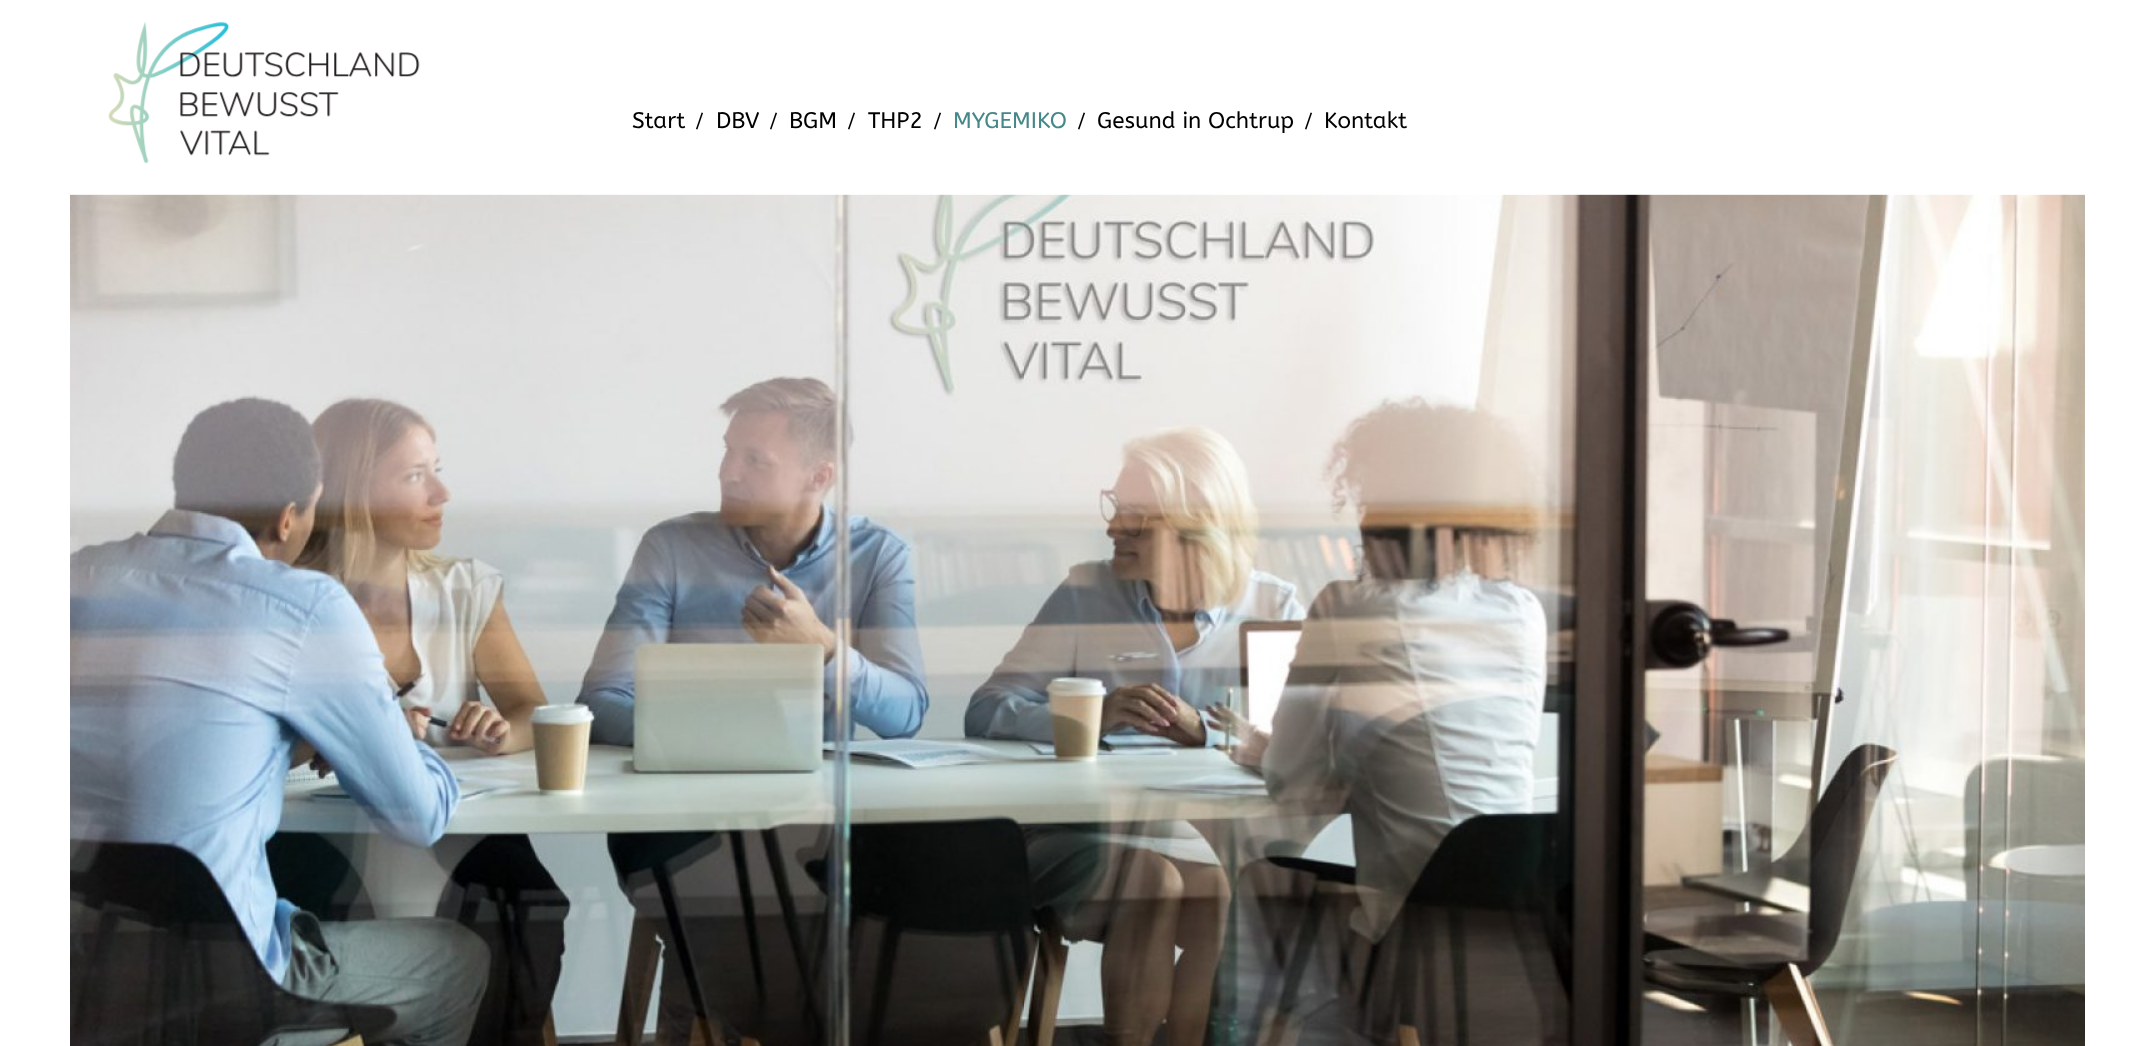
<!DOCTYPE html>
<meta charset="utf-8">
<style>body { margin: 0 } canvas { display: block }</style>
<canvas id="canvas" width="2153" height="1046"></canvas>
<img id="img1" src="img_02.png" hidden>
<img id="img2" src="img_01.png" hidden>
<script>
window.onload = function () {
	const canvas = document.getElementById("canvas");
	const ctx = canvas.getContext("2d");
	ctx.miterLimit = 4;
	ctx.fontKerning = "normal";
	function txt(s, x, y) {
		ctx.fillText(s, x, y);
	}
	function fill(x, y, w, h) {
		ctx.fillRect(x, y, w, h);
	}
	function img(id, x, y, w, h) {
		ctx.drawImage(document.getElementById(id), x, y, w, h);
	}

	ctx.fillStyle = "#FFFFFF";
	fill(0, 0, 2153, 1046);
	img("img1", 70, 194, 2015, 852);
	ctx.fillStyle = "rgba(255, 255, 255, 0.82)";
	fill(70, 194, 2015, 1);
	img("img2", 108, 22, 312, 142);
	ctx.font = "22.5px ABeeZee";
	ctx.fillStyle = "#000000";
	txt("Start", 632, 128);
	ctx.font = "20px ABeeZee";
	txt("/", 695, 128);
	ctx.font = "22.5px ABeeZee";
	txt("DBV", 716, 128);
	ctx.font = "20px ABeeZee";
	txt("/", 769, 128);
	ctx.font = "22.5px ABeeZee";
	txt("BGM", 789, 128);
	ctx.font = "20px ABeeZee";
	txt("/", 847, 128);
	ctx.font = "22.5px ABeeZee";
	txt("THP2", 868, 128);
	ctx.font = "20px ABeeZee";
	txt("/", 933, 128);
	ctx.font = "22.5px ABeeZee";
	ctx.fillStyle = "#468789";
	txt("MYGEMIKO", 953, 128);
	ctx.font = "20px ABeeZee";
	ctx.fillStyle = "#000000";
	txt("/", 1077, 128);
	ctx.font = "22.5px ABeeZee";
	txt("Gesund in Ochtrup", 1097, 128);
	ctx.font = "20px ABeeZee";
	txt("/", 1304, 128);
	ctx.font = "22.5px ABeeZee";
	txt("Kontakt", 1324, 128);
};
</script>
